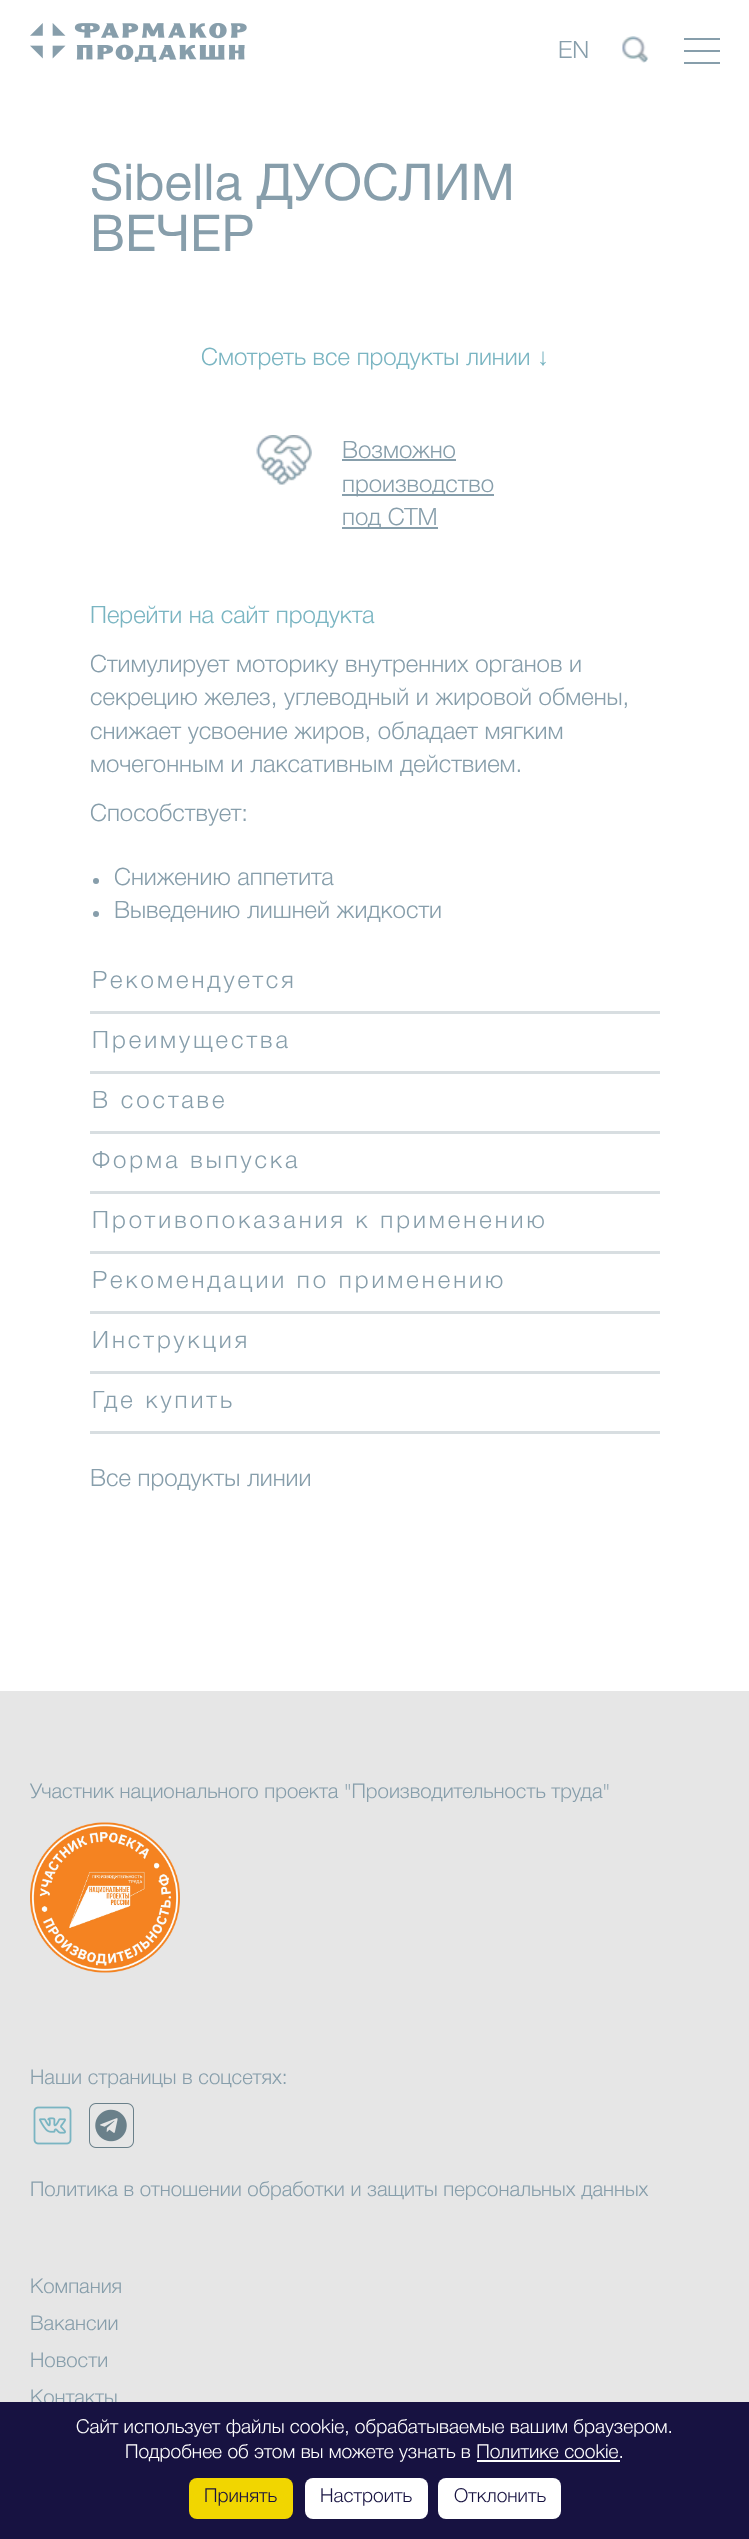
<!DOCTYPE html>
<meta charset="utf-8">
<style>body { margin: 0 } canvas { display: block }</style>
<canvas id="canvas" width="749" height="2539"></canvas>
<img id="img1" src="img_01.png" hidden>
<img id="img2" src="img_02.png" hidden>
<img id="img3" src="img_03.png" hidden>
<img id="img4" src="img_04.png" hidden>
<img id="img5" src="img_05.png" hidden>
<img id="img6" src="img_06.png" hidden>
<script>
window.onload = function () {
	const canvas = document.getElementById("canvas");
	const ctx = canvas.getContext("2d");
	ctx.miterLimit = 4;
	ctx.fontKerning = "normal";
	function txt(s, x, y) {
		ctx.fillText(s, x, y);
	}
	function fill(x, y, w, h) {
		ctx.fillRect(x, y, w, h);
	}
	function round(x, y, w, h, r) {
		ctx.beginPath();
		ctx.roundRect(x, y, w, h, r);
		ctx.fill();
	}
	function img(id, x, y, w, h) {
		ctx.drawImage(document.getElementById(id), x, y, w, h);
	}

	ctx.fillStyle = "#FFFFFF";
	fill(0, 0, 749, 2539);
	img("img1", 30, 23, 217, 39);
	img("img2", 622, 36, 27, 27);
	ctx.fillStyle = "#879EAB";
	fill(684, 38, 36, 2);
	fill(684, 50, 36, 2);
	fill(684, 62, 36, 2);
	img("img3", 256, 435, 56, 50);
	fill(342, 459, 114, 2);
	fill(342, 494, 152, 2);
	fill(342, 527, 96, 2);
	ctx.beginPath();
	ctx.arc(96, 881, 3, 0, Math.PI * 2);
	ctx.fill();
	ctx.beginPath();
	ctx.arc(96, 914, 3, 0, Math.PI * 2);
	ctx.fill();
	ctx.fillStyle = "#D8DEE1";
	fill(90, 1011, 570, 3);
	fill(90, 1071, 570, 3);
	fill(90, 1131, 570, 3);
	fill(90, 1191, 570, 3);
	fill(90, 1251, 570, 3);
	fill(90, 1311, 570, 3);
	fill(90, 1371, 570, 3);
	fill(90, 1431, 570, 3);
	ctx.fillStyle = "#E6E6E6";
	fill(0, 1691, 749, 711);
	img("img4", 30, 1822, 150, 151);
	img("img5", 33, 2106, 39, 39);
	img("img6", 89, 2103, 45, 45);
	ctx.font = "300 24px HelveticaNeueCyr";
	ctx.fillStyle = "#879EAB";
	txt("EN", 558, 58);
	ctx.font = "51px HelveticaNeueCyr";
	txt("Sibella ДУОСЛИМ", 90, 200);
	txt("ВЕЧЕР", 90, 251);
	ctx.font = "300 24px HelveticaNeueCyr";
	ctx.fillStyle = "#7AB5C2";
	txt("Смотреть все продукты линии", 201, 365);
	ctx.font = "24px Liberation Sans";
	txt("↓", 537, 365);
	ctx.font = "300 24px HelveticaNeueCyr";
	ctx.fillStyle = "#879EAB";
	txt("Возможно", 342, 458);
	txt("производство", 342, 492);
	txt("под СТМ", 342, 525);
	ctx.fillStyle = "#7AB5C2";
	txt("Перейти на сайт продукта", 90, 623);
	ctx.fillStyle = "#879EAB";
	txt("Стимулирует моторику внутренних органов и", 90, 672);
	txt("секрецию желез, углеводный и жировой обмены,", 90, 705);
	txt("снижает усвоение жиров, обладает мягким", 90, 739);
	txt("мочегонным и лаксативным действием.", 90, 772);
	txt("Cпособствует:", 90, 821);
	txt("Снижению аппетита", 114, 885);
	txt("Выведению лишней жидкости", 114, 918);
	ctx.letterSpacing = "3px";
	txt("Рекомендуется", 92, 988);
	txt("Преимущества", 92, 1048);
	txt("В составе", 92, 1108);
	txt("Форма выпуска", 92, 1168);
	txt("Противопоказания к применению", 92, 1228);
	txt("Рекомендации по применению", 92, 1288);
	txt("Инструкция", 92, 1348);
	txt("Где купить", 92, 1408);
	ctx.letterSpacing = "0px";
	txt("Все продукты линии", 90, 1486);
	ctx.font = "300 20.4px HelveticaNeueCyr";
	txt("Участник национального проекта \"Производительность труда\"", 30, 1798);
	txt("Наши страницы в соцсетях:", 30, 2084);
	txt("Политика в отношении обработки и защиты персональных данных", 30, 2196);
	txt("Компания", 30, 2293);
	txt("Вакансии", 30, 2330);
	txt("Новости", 30, 2367);
	txt("Контакты", 30, 2404);
	ctx.fillStyle = "#171241";
	fill(0, 2402, 749, 137);
	ctx.font = "300 19.2px HelveticaNeueCyr";
	ctx.fillStyle = "#FFFFFF";
	txt("Сайт использует файлы cookie, обрабатываемые вашим браузером.", 76, 2433);
	txt("Подробнее об этом вы можете узнать в Политике cookie.", 125, 2458);
	fill(477, 2460, 143, 2);
	ctx.fillStyle = "#F1D600";
	round(189, 2478, 104, 41, 8);
	ctx.fillStyle = "#171241";
	txt("Принять", 204, 2502);
	ctx.fillStyle = "#FFFFFF";
	round(305, 2478, 123, 41, 8);
	ctx.fillStyle = "#171241";
	txt("Настроить", 320, 2502);
	ctx.fillStyle = "#FFFFFF";
	round(438, 2478, 123, 41, 8);
	ctx.fillStyle = "#171241";
	txt("Отклонить", 454, 2502);
};
</script>
